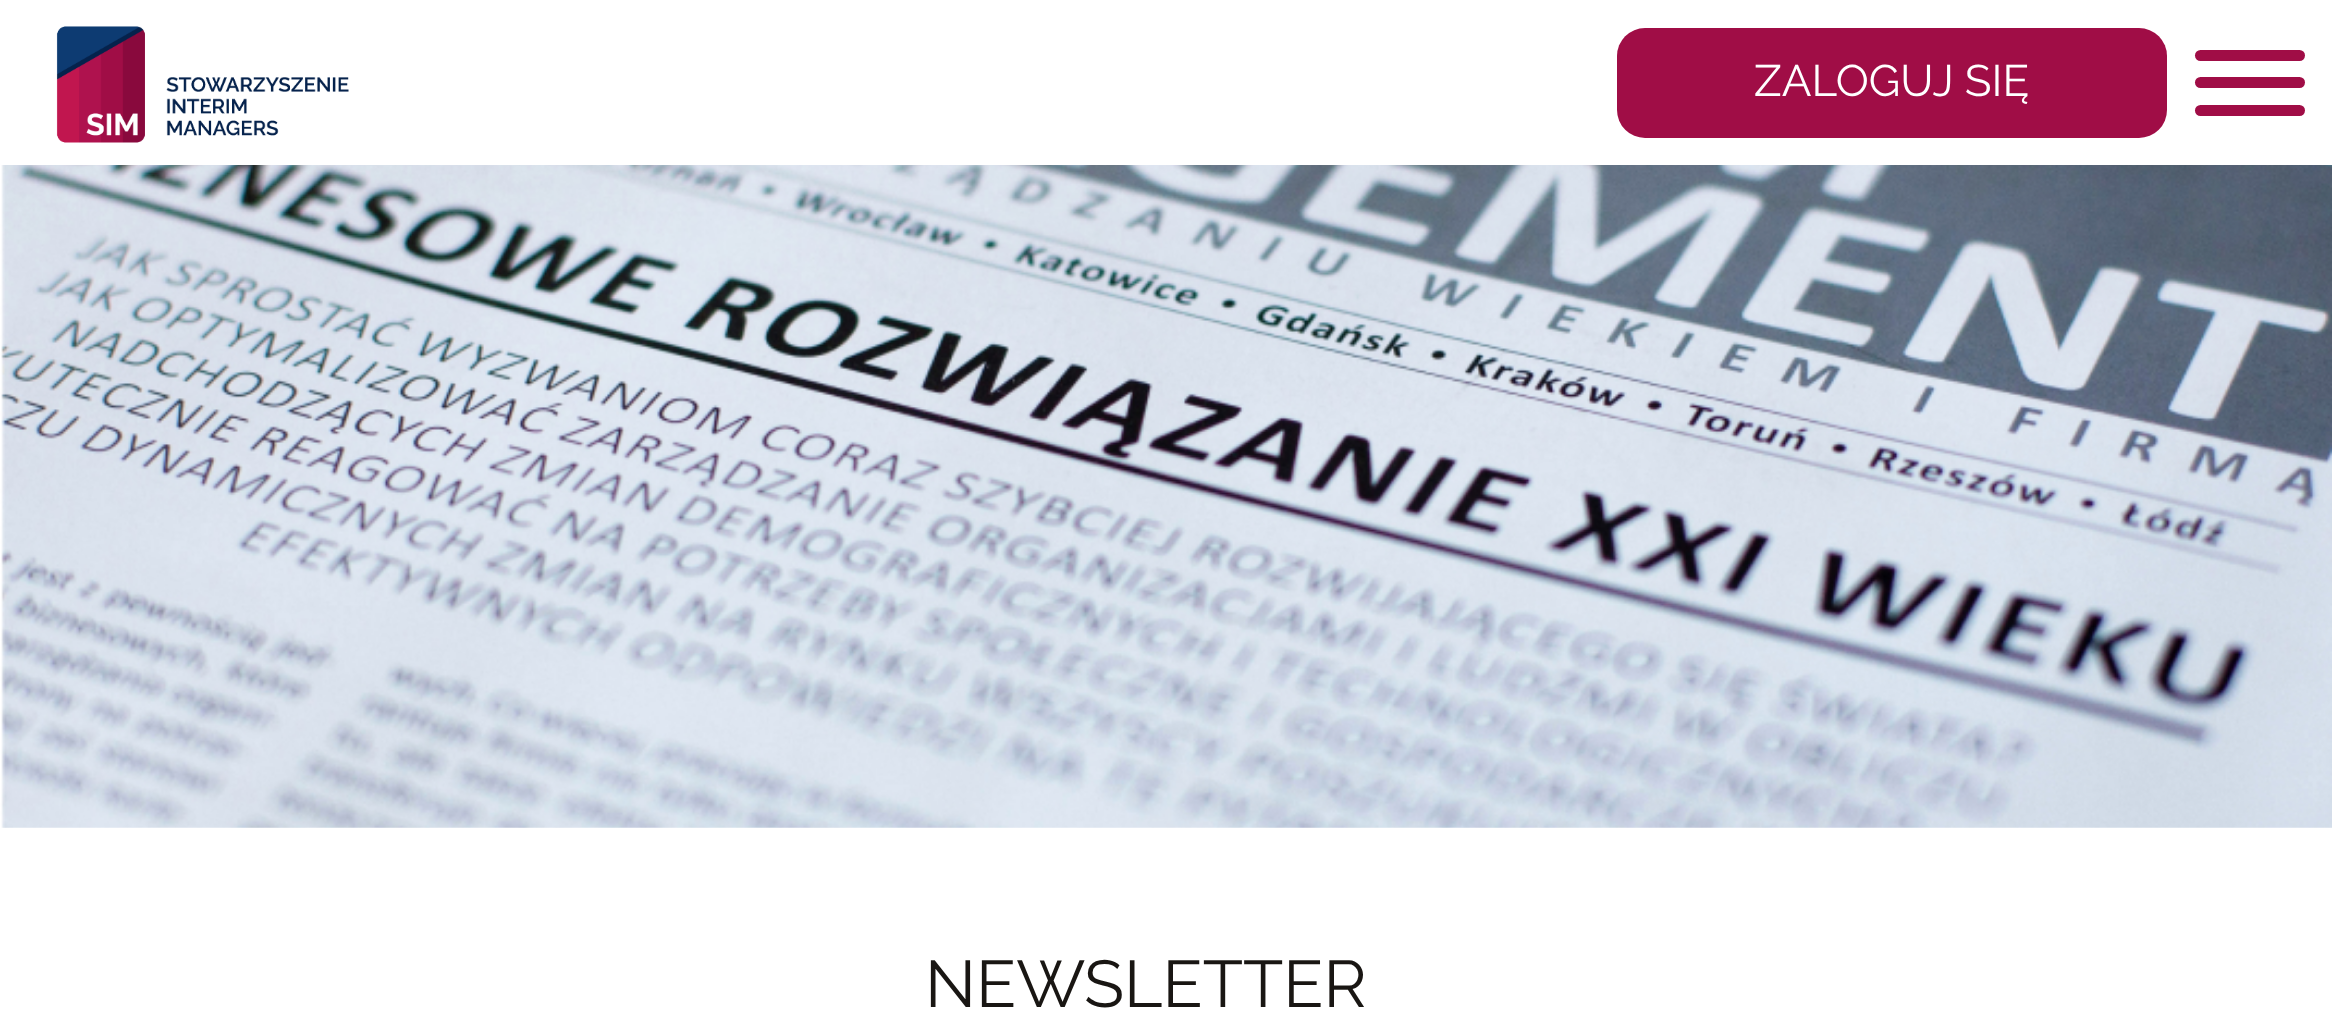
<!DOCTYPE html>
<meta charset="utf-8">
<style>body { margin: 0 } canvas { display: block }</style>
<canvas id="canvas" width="2332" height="1021"></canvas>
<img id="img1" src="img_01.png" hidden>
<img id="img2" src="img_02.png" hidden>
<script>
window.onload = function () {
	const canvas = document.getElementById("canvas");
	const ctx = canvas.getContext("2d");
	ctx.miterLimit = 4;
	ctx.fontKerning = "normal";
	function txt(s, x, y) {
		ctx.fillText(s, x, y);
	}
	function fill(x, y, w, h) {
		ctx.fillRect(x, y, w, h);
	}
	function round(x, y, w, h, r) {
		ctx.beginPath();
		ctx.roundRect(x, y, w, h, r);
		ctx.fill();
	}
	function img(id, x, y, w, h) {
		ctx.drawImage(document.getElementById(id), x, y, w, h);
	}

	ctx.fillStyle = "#FFFFFF";
	fill(0, 0, 2332, 1021);
	img("img1", 56, 26, 293, 117);
	ctx.fillStyle = "#A00D46";
	round(1617, 28, 550, 110, 28);
	round(2195, 77, 110, 11, 5.5);
	round(2195, 50, 110, 11, 5.5);
	round(2195, 105, 110, 11, 5.5);
	img("img2", 0, 165, 2332, 663);
	ctx.font = "44px Raleway";
	ctx.fillStyle = "#FFFFFF";
	txt("ZALOGUJ SIĘ", 1754, 96);
	ctx.font = "66px Raleway";
	ctx.fillStyle = "#191613";
	txt("NEWSLETTER", 925, 1007);
};
</script>
